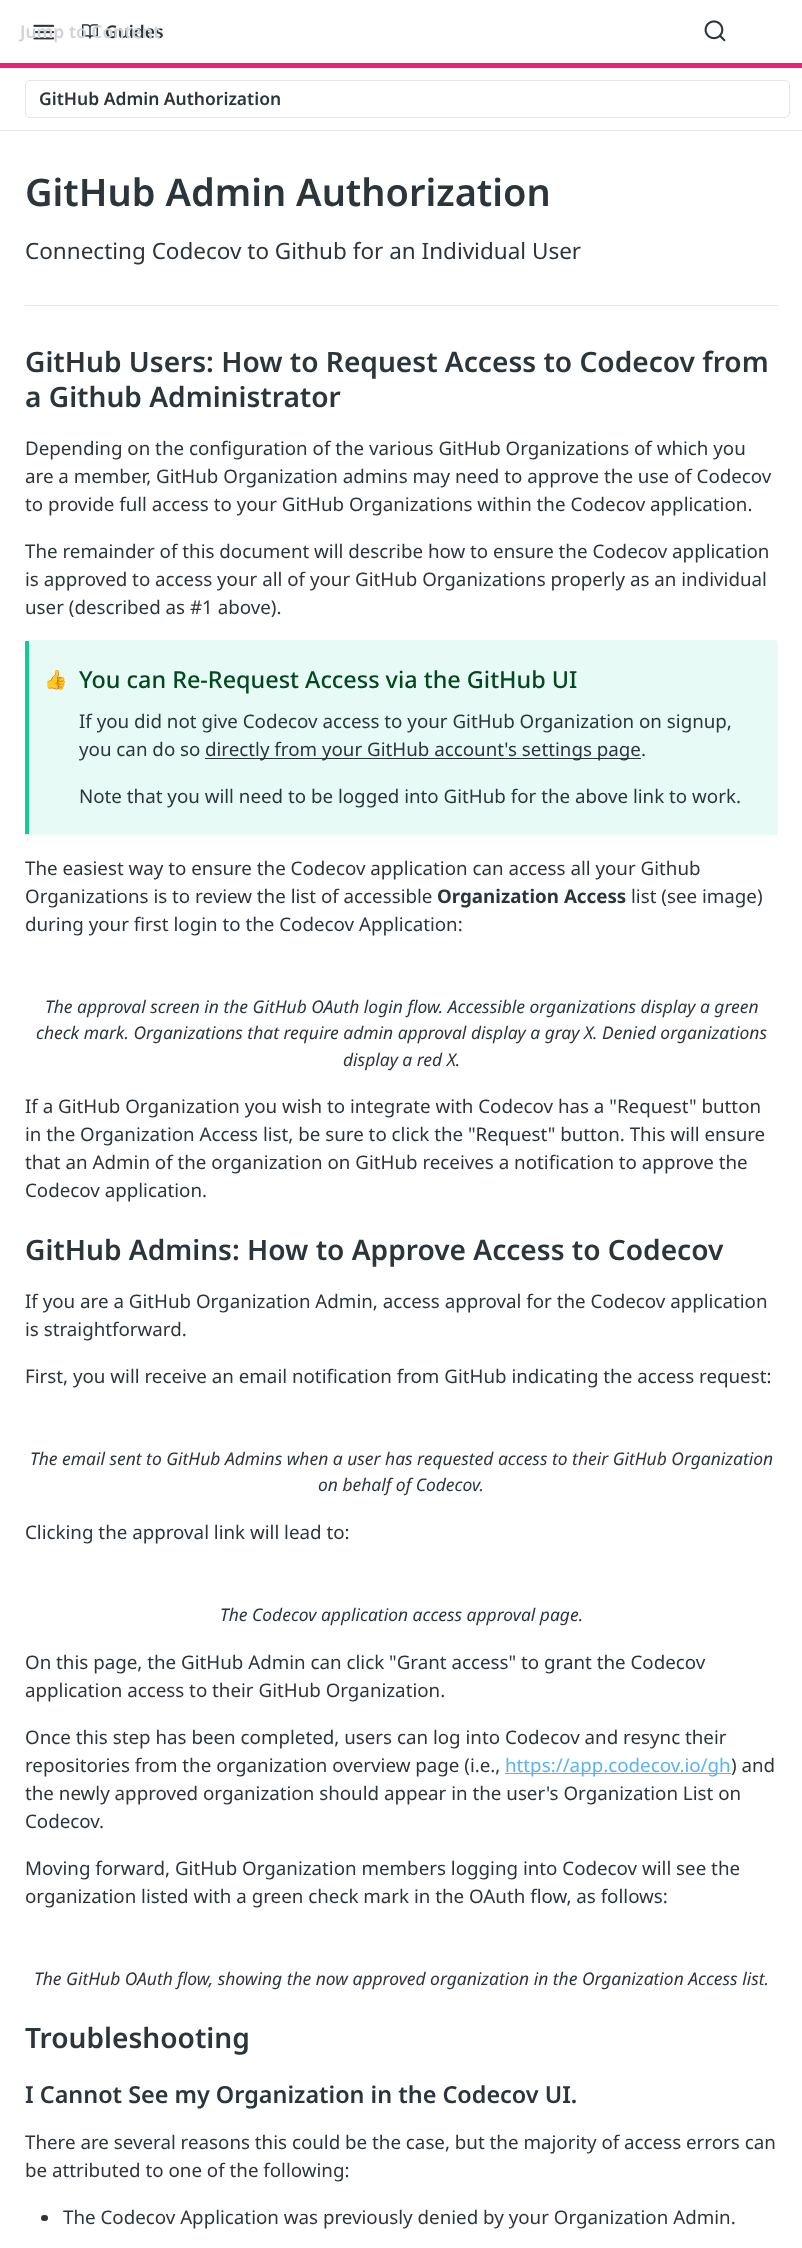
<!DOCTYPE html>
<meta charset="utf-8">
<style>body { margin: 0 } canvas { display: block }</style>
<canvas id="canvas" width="802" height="2248"></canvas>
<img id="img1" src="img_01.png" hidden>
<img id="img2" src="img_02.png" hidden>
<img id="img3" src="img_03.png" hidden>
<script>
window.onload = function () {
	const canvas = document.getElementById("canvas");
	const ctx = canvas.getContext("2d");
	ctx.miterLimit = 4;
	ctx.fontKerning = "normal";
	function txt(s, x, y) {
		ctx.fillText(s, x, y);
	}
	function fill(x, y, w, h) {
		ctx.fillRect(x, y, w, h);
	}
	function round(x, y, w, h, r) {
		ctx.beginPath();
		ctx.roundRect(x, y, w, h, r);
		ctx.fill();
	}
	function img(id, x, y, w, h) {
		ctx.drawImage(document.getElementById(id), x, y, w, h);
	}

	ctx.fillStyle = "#FFFFFF";
	fill(0, 0, 802, 2248);
	ctx.fillStyle = "#E6E6E6";
	ctx.beginPath();
	ctx.moveTo(0, 130);
	ctx.lineTo(0, 131);
	ctx.lineTo(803, 131);
	ctx.lineTo(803, 1);
	ctx.lineTo(802, 1);
	ctx.lineTo(802, 130);
	ctx.closePath();
	ctx.fill();
	ctx.fillStyle = "#F01F7A";
	fill(0, 63, 802, 5);
	img("img1", 33, 24, 22, 16);
	img("img2", 82, 24, 16, 15);
	img("img3", 704, 20, 22, 22);
	ctx.beginPath();
	ctx.roundRect(25.5, 80.5, 764, 37, 4.5);
	ctx.strokeStyle = "#E6E6E6";
	ctx.stroke();
	ctx.fillStyle = "#E6E6E6";
	fill(25, 305, 753, 1);
	ctx.fillStyle = "#E8FAF5";
	round(25, 640, 753, 195, 2.5);
	ctx.fillStyle = "#12CA93";
	fill(25, 641, 4, 193);
	ctx.fillStyle = "#2B353B";
	fill(205, 758, 436, 1);
	ctx.fillStyle = "#5BB3F2";
	fill(505, 1773, 226, 1);
	ctx.fillStyle = "#2B353B";
	round(41, 2215, 7, 6, 3);
	ctx.font = "600 17.5px Noto Sans";
	txt("Guides", 105, 38);
	ctx.fillStyle = "#D1D3D5";
	txt("Jump to Content", 20, 38);
	ctx.fillStyle = "#2B353B";
	txt("GitHub Admin Authorization", 39, 105);
	ctx.font = "600 38px Noto Sans";
	txt("GitHub Admin Authorization", 25, 206);
	ctx.font = "22.5px Noto Sans";
	txt("Connecting Codecov to Github for an Individual User", 25, 259);
	ctx.font = "600 28.1px Noto Sans";
	txt("GitHub Users: How to Request Access to Codecov from", 25, 372);
	txt("a Github Administrator", 25, 407);
	ctx.font = "18.75px Noto Sans";
	txt("Depending on the configuration of the various GitHub Organizations of which you", 25, 455);
	txt("are a member, GitHub Organization admins may need to approve the use of Codecov", 25, 483);
	txt("to provide full access to your GitHub Organizations within the Codecov application.", 25, 511);
	txt("The remainder of this document will describe how to ensure the Codecov application", 25, 558);
	txt("is approved to access your all of your GitHub Organizations properly as an individual", 25, 586);
	txt("user (described as #1 above).", 25, 614);
	ctx.font = "18.75px Noto Color Emoji";
	txt("👍", 44, 686);
	ctx.font = "500 23.4px Noto Sans";
	ctx.fillStyle = "#00491F";
	txt("You can Re-Request Access via the GitHub UI", 79, 688);
	ctx.font = "18.75px Noto Sans";
	ctx.fillStyle = "#2B353B";
	txt("If you did not give Codecov access to your GitHub Organization on signup,", 79, 728);
	txt("you can do so", 79, 756);
	txt("directly from your GitHub account's settings page.", 205, 756);
	txt("Note that you will need to be logged into GitHub for the above link to work.", 79, 803);
	txt("The easiest way to ensure the Codecov application can access all your Github", 25, 875);
	txt("Organizations is to review the list of accessible", 25, 903);
	ctx.font = "bold 18.75px Noto Sans";
	txt("Organization Access", 437, 903);
	ctx.font = "18.75px Noto Sans";
	txt("list (see image)", 631, 903);
	txt("during your first login to the Codecov Application:", 25, 931);
	ctx.font = "italic 17.45px Noto Sans";
	txt("The approval screen in the GitHub OAuth login flow. Accessible organizations display a green", 45, 1013);
	txt("check mark. Organizations that require admin approval display a gray X. Denied organizations", 36, 1039);
	txt("display a red X.", 343, 1066);
	ctx.font = "18.75px Noto Sans";
	txt("If a GitHub Organization you wish to integrate with Codecov has a \"Request\" button", 25, 1113);
	txt("in the Organization Access list, be sure to click the \"Request\" button. This will ensure", 25, 1141);
	txt("that an Admin of the organization on GitHub receives a notification to approve the", 25, 1169);
	txt("Codecov application.", 25, 1197);
	ctx.font = "600 28.1px Noto Sans";
	txt("GitHub Admins: How to Approve Access to Codecov", 25, 1260);
	ctx.font = "18.75px Noto Sans";
	txt("If you are a GitHub Organization Admin, access approval for the Codecov application", 25, 1308);
	txt("is straightforward.", 25, 1336);
	txt("First, you will receive an email notification from GitHub indicating the access request:", 25, 1383);
	ctx.font = "italic 17.45px Noto Sans";
	txt("The email sent to GitHub Admins when a user has requested access to their GitHub Organization", 30, 1465);
	txt("on behalf of Codecov.", 318, 1491);
	ctx.font = "18.75px Noto Sans";
	txt("Clicking the approval link will lead to:", 25, 1539);
	ctx.font = "italic 17.45px Noto Sans";
	txt("The Codecov application access approval page.", 220, 1621);
	ctx.font = "18.75px Noto Sans";
	txt("On this page, the GitHub Admin can click \"Grant access\" to grant the Codecov", 25, 1669);
	txt("application access to their GitHub Organization.", 25, 1697);
	txt("Once this step has been completed, users can log into Codecov and resync their", 25, 1744);
	txt("repositories from the organization overview page (i.e.,", 25, 1772);
	ctx.fillStyle = "#5BB3F2";
	txt("https://app.codecov.io/gh", 505, 1772);
	ctx.fillStyle = "#2B353B";
	txt(") and", 731, 1772);
	txt("the newly approved organization should appear in the user's Organization List on", 25, 1800);
	txt("Codecov.", 25, 1828);
	txt("Moving forward, GitHub Organization members logging into Codecov will see the", 25, 1875);
	txt("organization listed with a green check mark in the OAuth flow, as follows:", 25, 1903);
	ctx.font = "italic 17.45px Noto Sans";
	txt("The GitHub OAuth flow, showing the now approved organization in the Organization Access list.", 34, 1985);
	ctx.font = "600 28.1px Noto Sans";
	txt("Troubleshooting", 25, 2048);
	ctx.font = "600 23.4px Noto Sans";
	txt("I Cannot See my Organization in the Codecov UI.", 25, 2103);
	ctx.font = "18.75px Noto Sans";
	txt("There are several reasons this could be the case, but the majority of access errors can", 25, 2149);
	txt("be attributed to one of the following:", 25, 2177);
	txt("The Codecov Application was previously denied by your Organization Admin.", 63, 2224);
};
</script>
